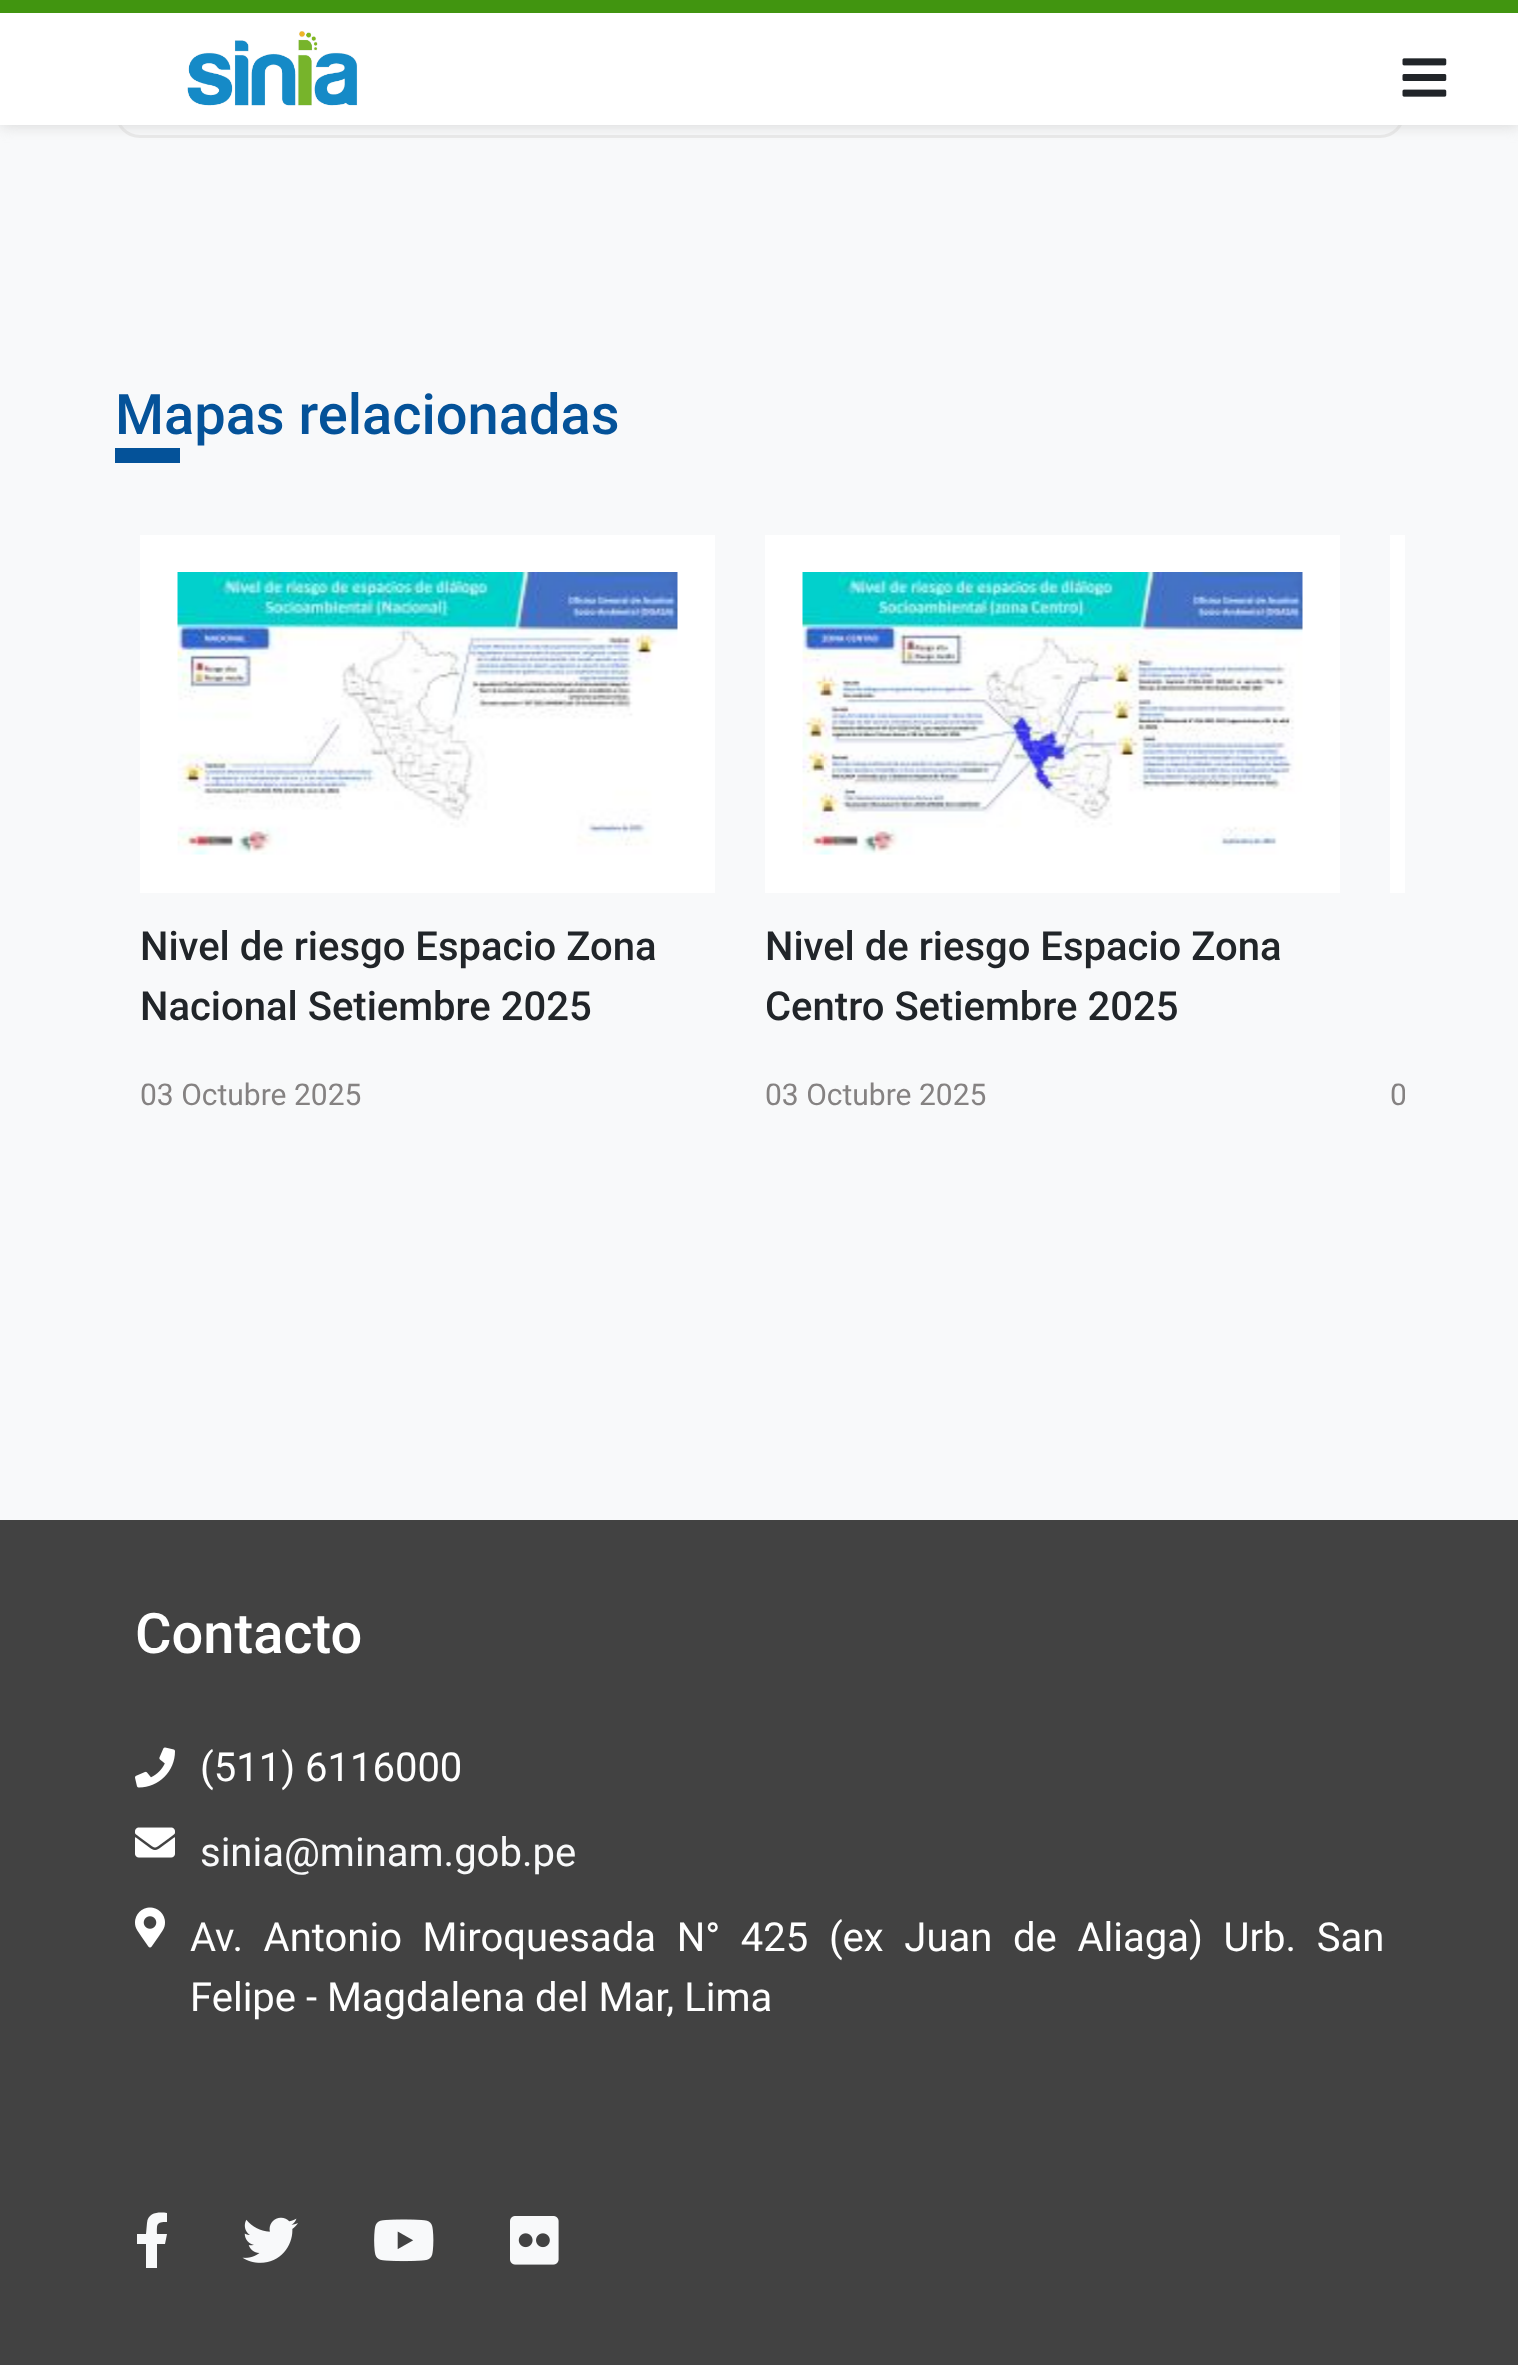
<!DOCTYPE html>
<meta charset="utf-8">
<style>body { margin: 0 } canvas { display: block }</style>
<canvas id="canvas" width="1518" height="2365"></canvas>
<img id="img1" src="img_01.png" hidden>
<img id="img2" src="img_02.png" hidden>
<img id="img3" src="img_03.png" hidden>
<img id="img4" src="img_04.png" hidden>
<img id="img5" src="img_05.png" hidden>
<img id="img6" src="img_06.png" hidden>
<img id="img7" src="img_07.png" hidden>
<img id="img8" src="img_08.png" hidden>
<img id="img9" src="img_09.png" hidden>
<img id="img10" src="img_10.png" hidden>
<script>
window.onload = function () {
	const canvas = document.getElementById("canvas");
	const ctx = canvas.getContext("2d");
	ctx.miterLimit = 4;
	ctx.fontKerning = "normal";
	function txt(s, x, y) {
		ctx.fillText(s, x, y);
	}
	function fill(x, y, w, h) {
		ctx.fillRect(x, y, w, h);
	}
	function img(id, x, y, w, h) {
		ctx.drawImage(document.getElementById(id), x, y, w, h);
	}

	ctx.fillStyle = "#F8F9FA";
	fill(0, 0, 1518, 2365);
	ctx.beginPath();
	ctx.roundRect(116.5, -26.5, 1287, 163, 23.5);
	ctx.strokeStyle = "#E9E9E9";
	ctx.lineWidth = 3;
	ctx.stroke();
	ctx.fillStyle = "rgba(204, 204, 204, 0.8)";
	ctx.filter = "blur(7.5px)";
	ctx.beginPath();
	ctx.rect(0, 0, 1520, 125);
	ctx.fill();
	ctx.filter = "none";
	ctx.fillStyle = "#FFFFFF";
	fill(0, 13, 1518, 112);
	ctx.fillStyle = "#419510";
	fill(0, 0, 1518, 13);
	img("img1", 187, 31, 171, 75);
	img("img2", 1402, 58, 45, 39);
	ctx.fillStyle = "#045299";
	fill(115, 448, 65, 15);
	ctx.fillStyle = "#FFFFFF";
	fill(140, 535, 575, 358);
	img("img3", 177, 572, 501, 283);
	fill(765, 535, 575, 358);
	img("img4", 802, 572, 501, 283);
	fill(1390, 535, 15, 358);
	ctx.fillStyle = "#424242";
	fill(0, 1520, 1518, 845);
	img("img5", 135, 1747, 40, 41);
	img("img6", 135, 1827, 40, 31);
	img("img7", 135, 1907, 30, 41);
	ctx.fillStyle = "#F8F9FA";
	ctx.beginPath();
	ctx.moveTo(165, 2244);
	ctx.lineTo(167, 2234);
	ctx.lineTo(157, 2234);
	ctx.bezierCurveTo(157, 2224, 156, 2222, 167, 2222);
	ctx.lineTo(167, 2213);
	ctx.bezierCurveTo(159, 2212, 148, 2212, 147, 2223);
	ctx.lineTo(146, 2234);
	ctx.lineTo(137, 2234);
	ctx.lineTo(137, 2244);
	ctx.lineTo(146, 2244);
	ctx.lineTo(146, 2268);
	ctx.lineTo(157, 2268);
	ctx.lineTo(157, 2244);
	ctx.closePath();
	ctx.fill();
	img("img8", 242, 2217, 56, 46);
	img("img9", 374, 2219, 60, 43);
	img("img10", 510, 2216, 49, 49);
	ctx.font = "500 56px Roboto";
	ctx.fillStyle = "#045299";
	txt("Mapas relacionadas", 115, 434);
	ctx.font = "500 40px Roboto";
	ctx.fillStyle = "#212529";
	txt("Nivel de riesgo Espacio Zona", 140, 960);
	txt("Nacional Setiembre 2025", 140, 1020);
	ctx.font = "30px Roboto";
	ctx.fillStyle = "#858282";
	txt("03 Octubre 2025", 140, 1105);
	ctx.font = "500 40px Roboto";
	ctx.fillStyle = "#212529";
	txt("Nivel de riesgo Espacio Zona", 765, 960);
	txt("Centro Setiembre 2025", 765, 1020);
	ctx.font = "30px Roboto";
	ctx.fillStyle = "#858282";
	txt("03 Octubre 2025", 765, 1105);
	ctx.save();
	ctx.beginPath();
	ctx.rect(115, 510, 1290, 950);
	ctx.clip();
	txt("0", 1390, 1105);
	ctx.restore();
	ctx.font = "500 56px Roboto";
	ctx.fillStyle = "#FFFFFF";
	txt("Contacto", 135, 1653);
	ctx.font = "40px Roboto";
	txt("(511) 6116000", 200, 1781);
	ctx.fillStyle = "#F8F9FA";
	txt("sinia@minam.gob.pe", 200, 1866);
	ctx.wordSpacing = "10.75px";
	ctx.fillStyle = "#FFFFFF";
	txt("Av. Antonio Miroquesada N° 425 (ex Juan de Aliaga) Urb. San", 190, 1951);
	ctx.wordSpacing = "0px";
	txt("Felipe - Magdalena del Mar, Lima", 190, 2011);
};
</script>
